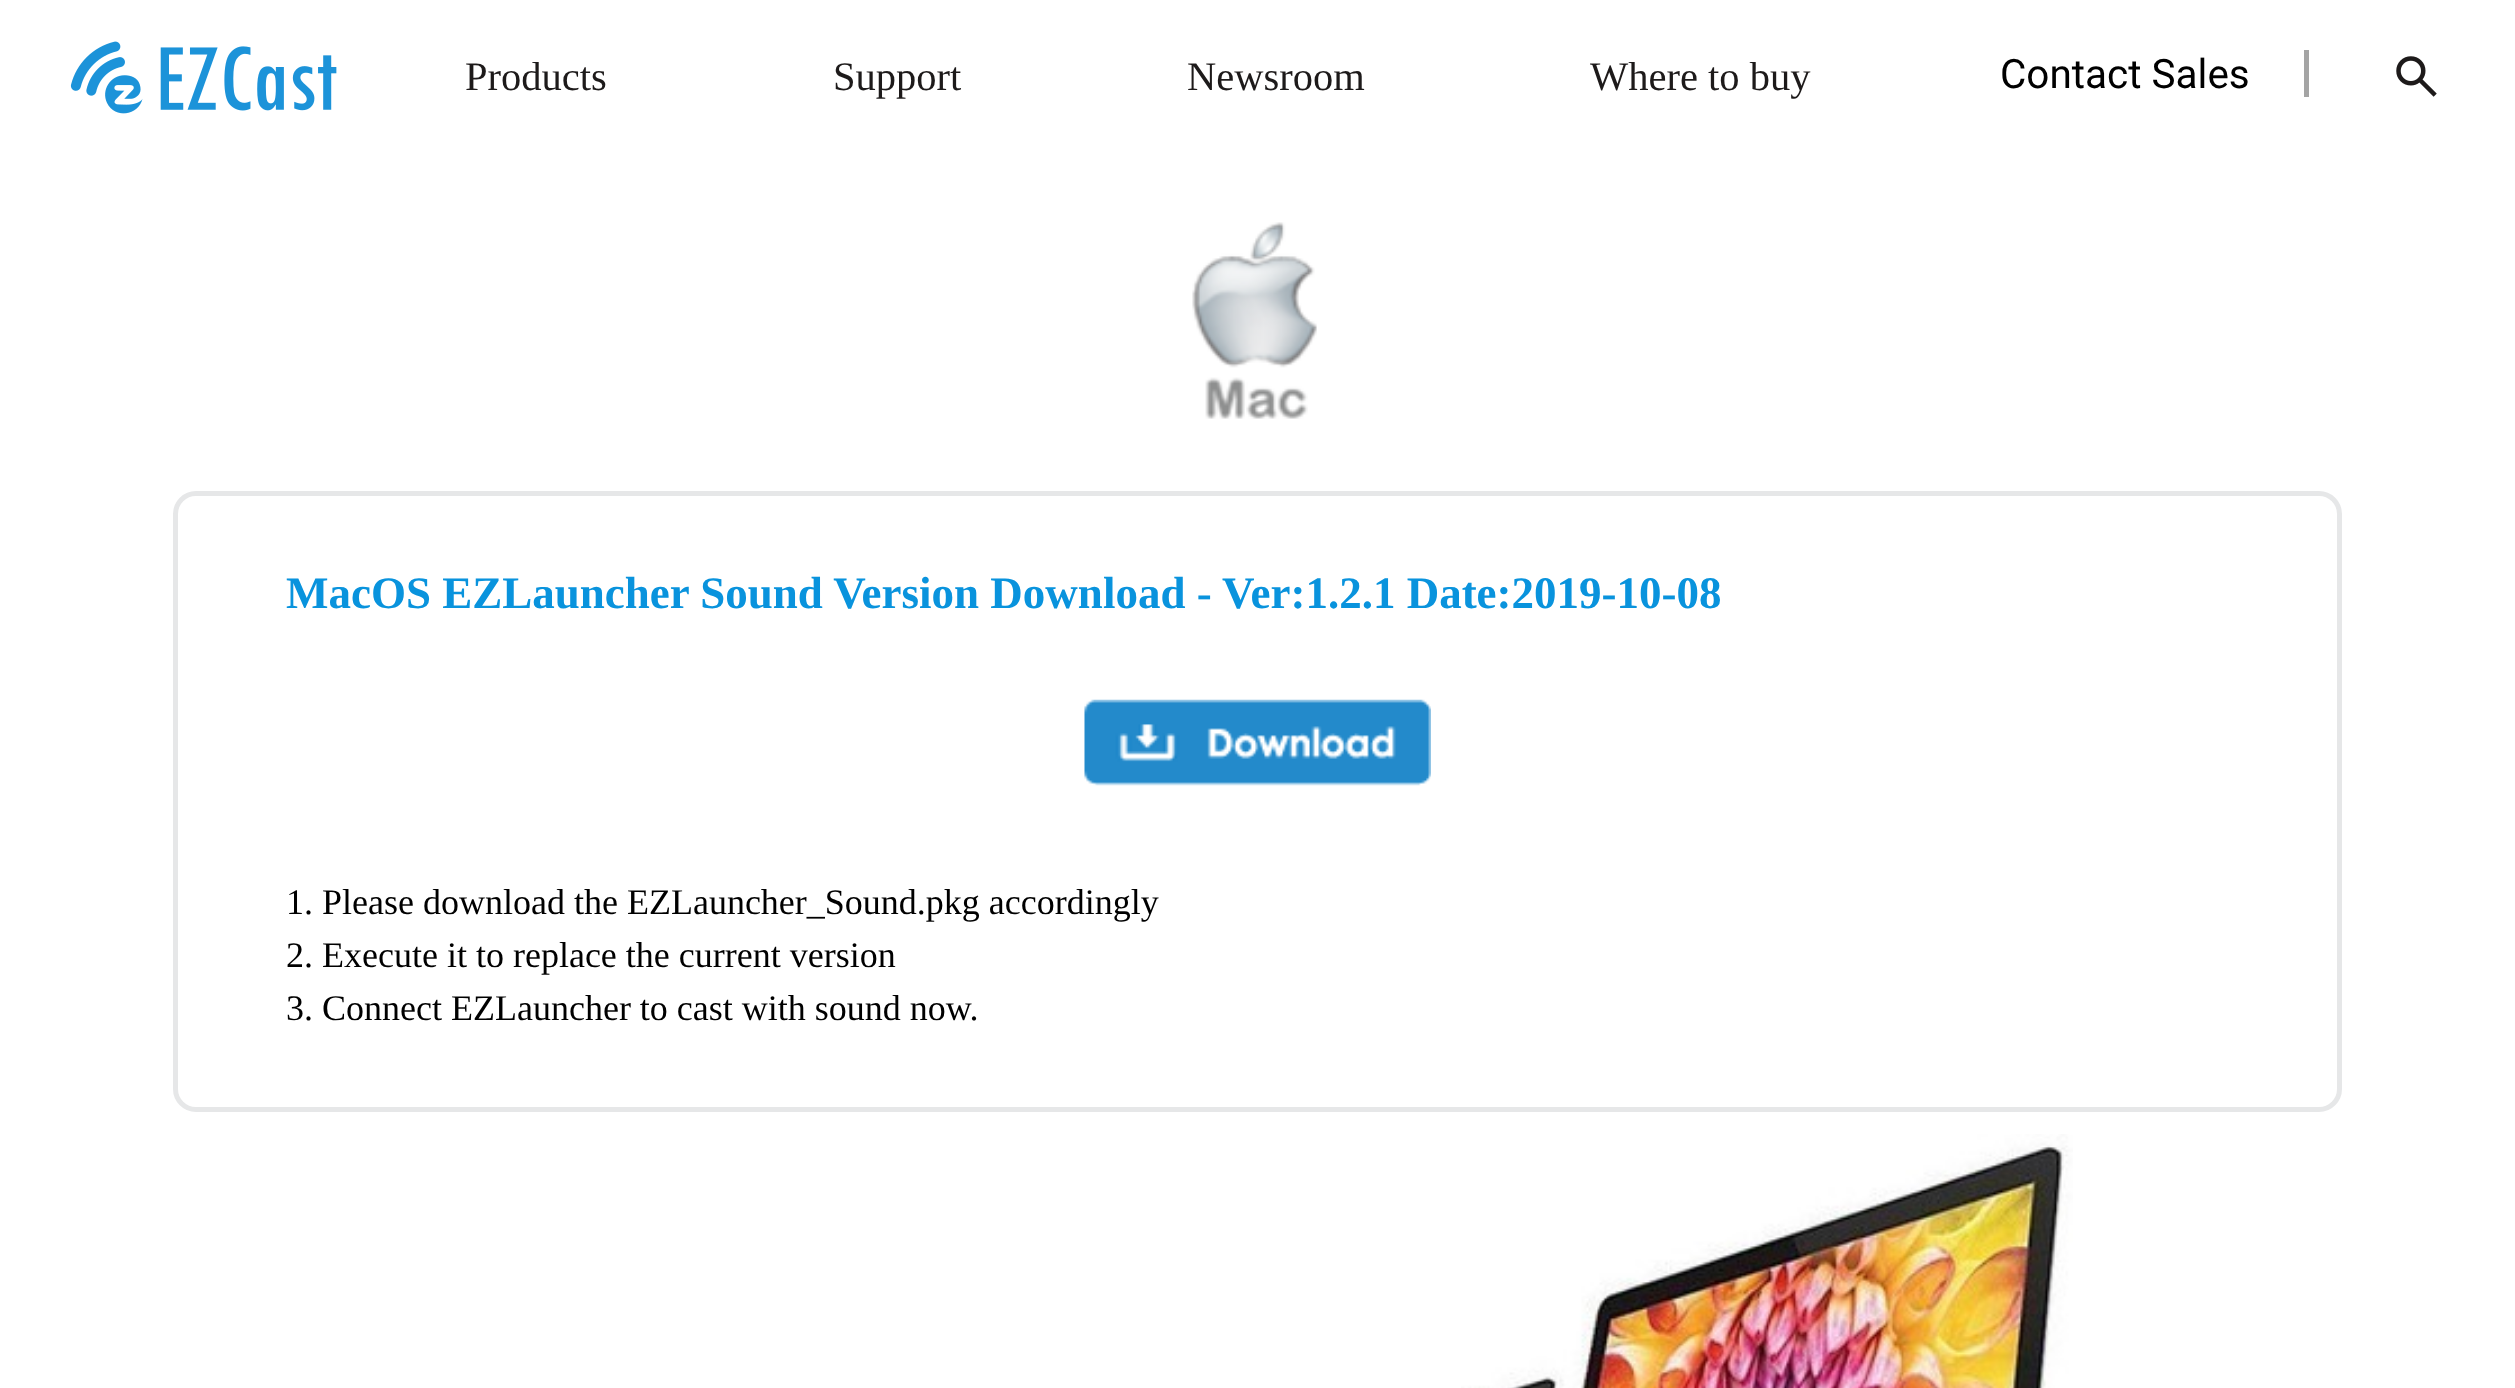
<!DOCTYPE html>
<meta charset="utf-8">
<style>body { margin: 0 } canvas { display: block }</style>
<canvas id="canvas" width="2515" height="1388"></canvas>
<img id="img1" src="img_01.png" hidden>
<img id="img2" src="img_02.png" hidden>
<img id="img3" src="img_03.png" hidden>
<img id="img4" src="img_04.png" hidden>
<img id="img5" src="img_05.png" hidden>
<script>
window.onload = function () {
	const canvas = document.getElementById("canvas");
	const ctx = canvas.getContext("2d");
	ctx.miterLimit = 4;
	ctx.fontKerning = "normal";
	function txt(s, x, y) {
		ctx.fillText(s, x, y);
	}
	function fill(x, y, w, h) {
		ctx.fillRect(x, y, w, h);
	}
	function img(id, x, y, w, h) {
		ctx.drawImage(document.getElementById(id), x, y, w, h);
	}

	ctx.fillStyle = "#FFFFFF";
	fill(0, 0, 2515, 1388);
	img("img1", 70, 41, 267, 73);
	ctx.fillStyle = "#A4A4A4";
	fill(2304, 50, 5, 47);
	img("img2", 2396, 56, 41, 41);
	img("img3", 1192, 222, 125, 197);
	ctx.beginPath();
	ctx.roundRect(175.5, 493.5, 2164, 616, 20.5);
	ctx.strokeStyle = "#E6E7E8";
	ctx.lineWidth = 5;
	ctx.stroke();
	img("img4", 1084, 699, 347, 87);
	img("img5", 1461, 1134, 612, 254);
	ctx.font = "40.5px Liberation Serif";
	ctx.fillStyle = "#1D1A1A";
	txt("Products", 465, 90);
	txt("Support", 833, 90);
	txt("Newsroom", 1187, 90);
	txt("Where to buy", 1590, 90);
	ctx.font = "40.5px Roboto";
	ctx.fillStyle = "#000000";
	txt("Contact Sales", 2000, 88);
	ctx.font = "bold 45px Liberation Serif";
	ctx.fillStyle = "#0993DD";
	txt("MacOS EZLauncher Sound Version Download - Ver:1.2.1 Date:2019-10-08", 286, 608);
	ctx.font = "36px Liberation Serif";
	ctx.fillStyle = "#000000";
	txt("1. Please download the EZLauncher_Sound.pkg accordingly", 286, 914);
	txt("2. Execute it to replace the current version", 286, 967);
	txt("3. Connect EZLauncher to cast with sound now.", 286, 1020);
};
</script>
